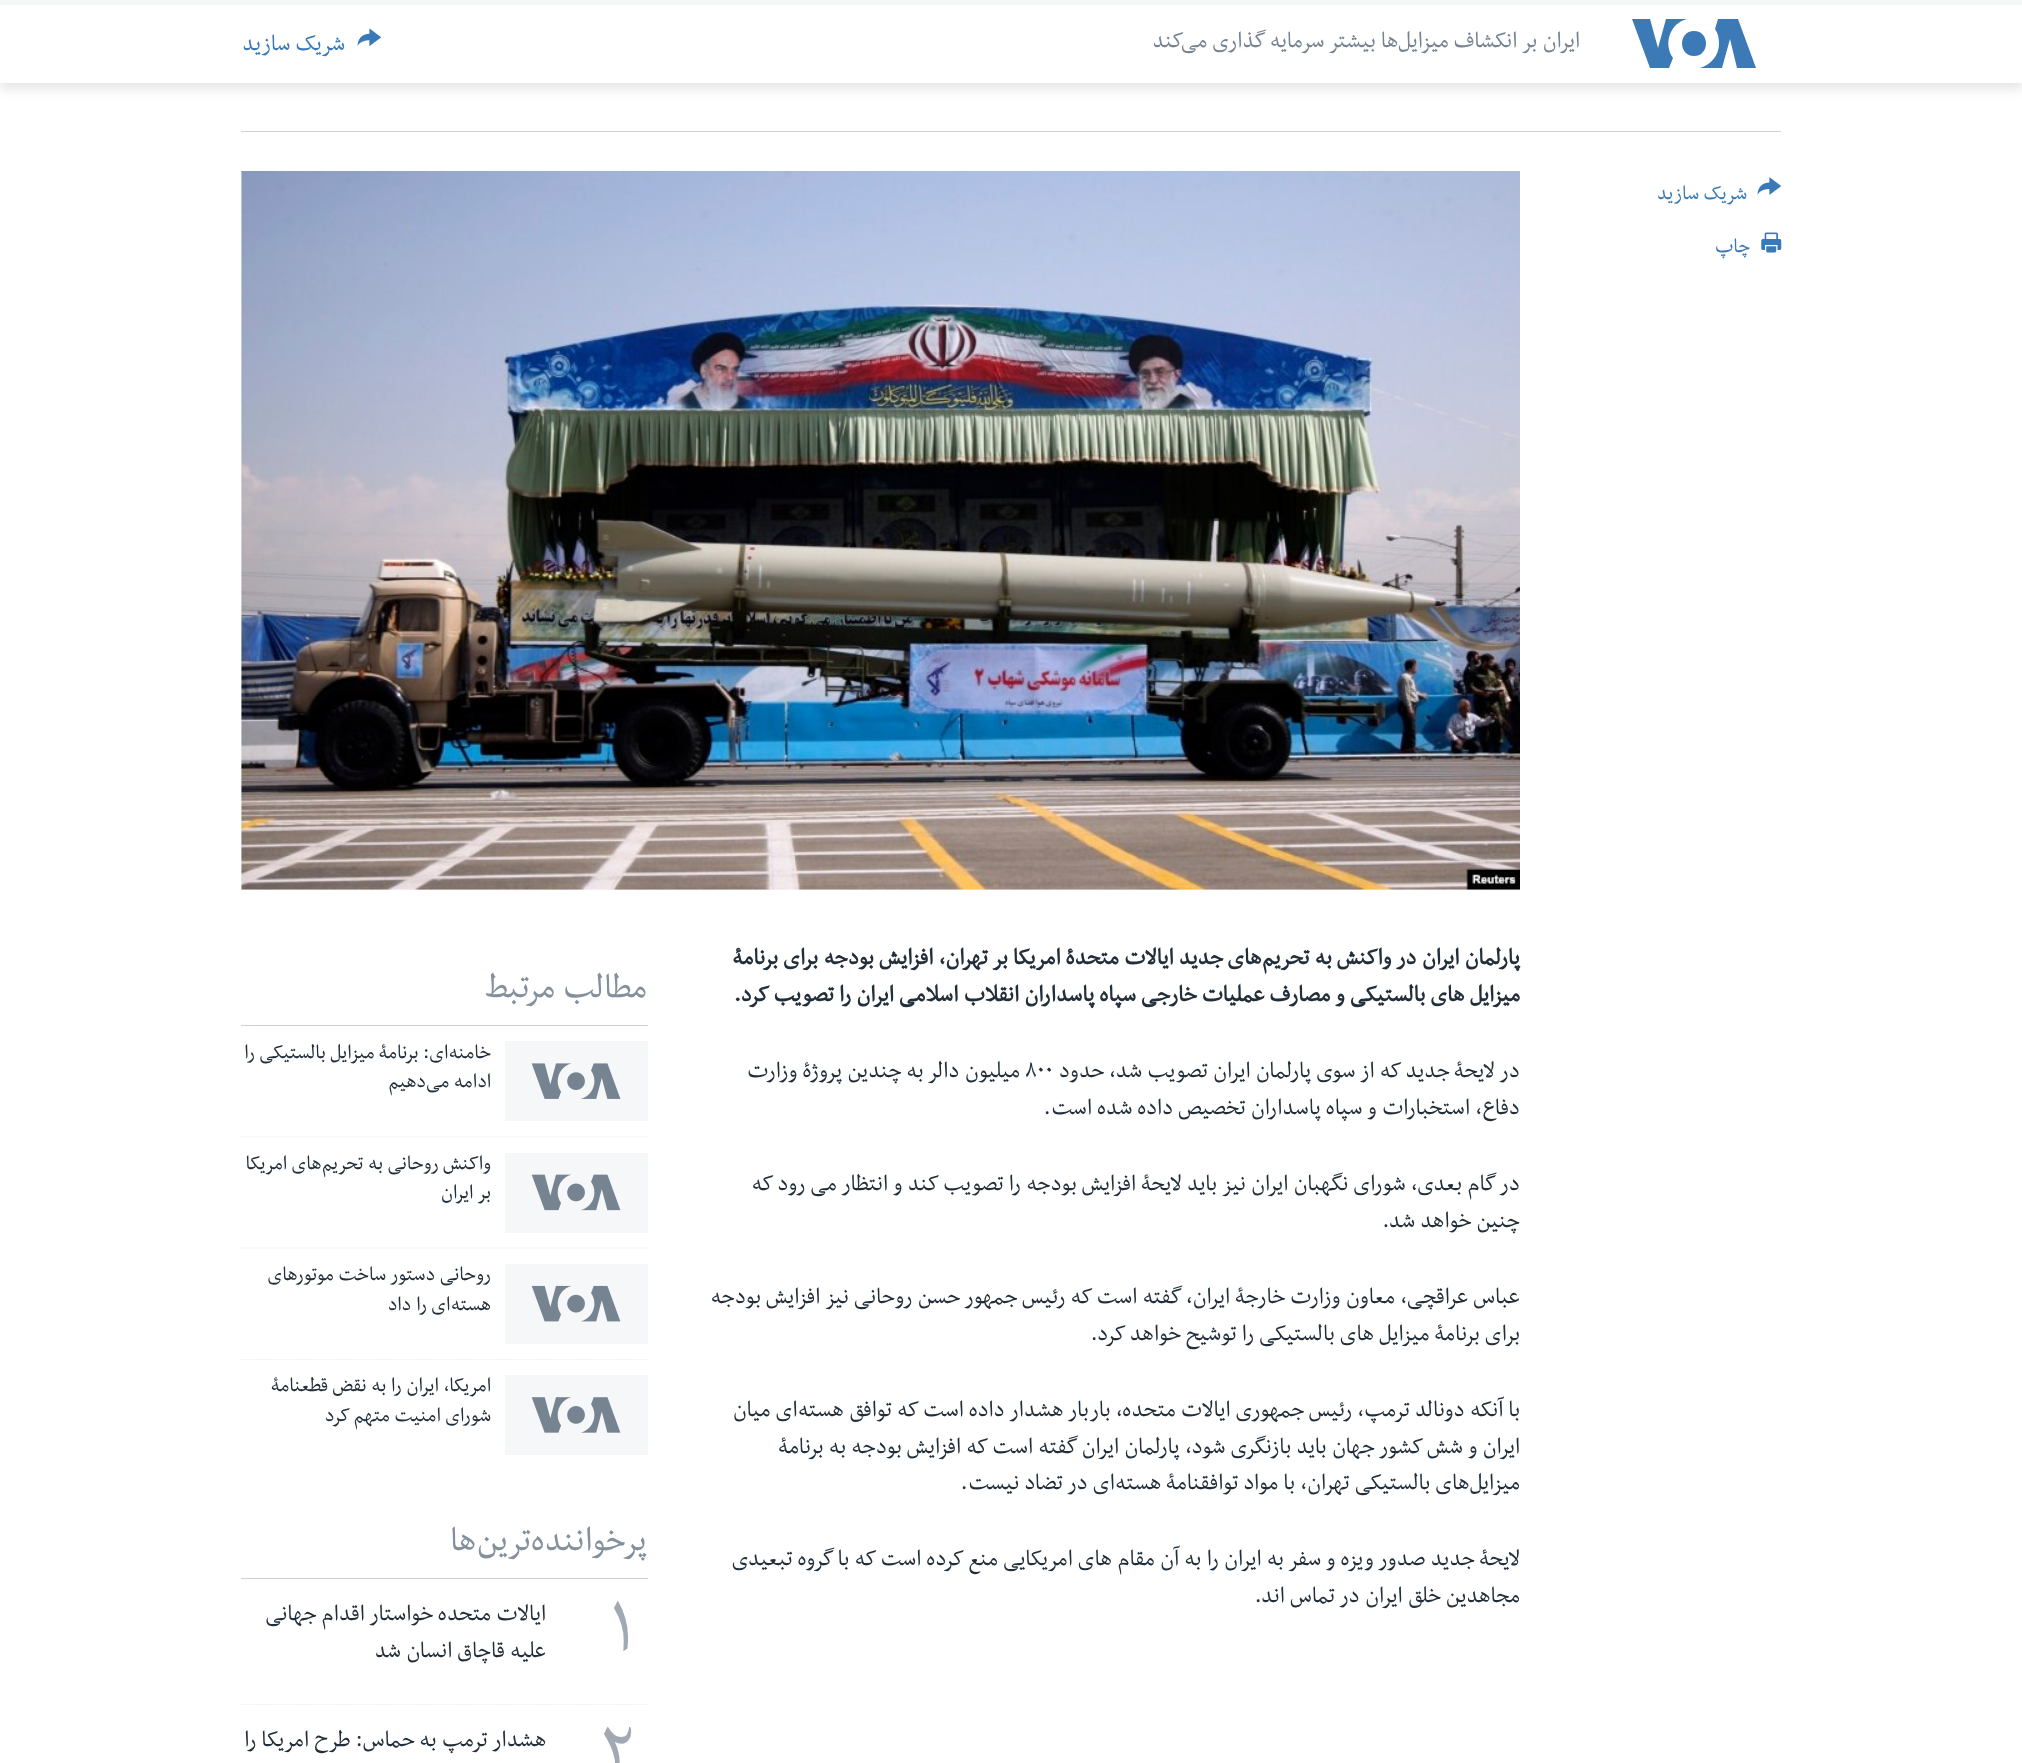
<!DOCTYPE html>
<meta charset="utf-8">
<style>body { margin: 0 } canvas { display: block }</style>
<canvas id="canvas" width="2022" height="1763"></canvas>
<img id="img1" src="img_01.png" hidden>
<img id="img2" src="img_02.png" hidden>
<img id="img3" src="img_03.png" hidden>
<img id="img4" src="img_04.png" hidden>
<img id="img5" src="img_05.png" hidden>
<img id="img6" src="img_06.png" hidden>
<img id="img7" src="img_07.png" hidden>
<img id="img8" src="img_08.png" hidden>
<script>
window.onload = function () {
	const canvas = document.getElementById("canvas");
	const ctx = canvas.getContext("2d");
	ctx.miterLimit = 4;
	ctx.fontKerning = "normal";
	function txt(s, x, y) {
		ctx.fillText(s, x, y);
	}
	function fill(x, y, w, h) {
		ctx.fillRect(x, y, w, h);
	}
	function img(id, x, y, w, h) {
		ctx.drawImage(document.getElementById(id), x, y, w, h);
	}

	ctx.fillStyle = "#FFFFFF";
	fill(0, 0, 2022, 1763);
	ctx.fillStyle = "rgba(0, 0, 0, 0.1)";
	ctx.filter = "blur(6px)";
	ctx.beginPath();
	ctx.rect(0, 6, 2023, 83);
	ctx.fill();
	ctx.filter = "none";
	ctx.fillStyle = "#FFFFFF";
	fill(0, 5, 2022, 78);
	ctx.fillStyle = "#F6F7F8";
	fill(0, 0, 2022, 5);
	ctx.fillStyle = "#3B79B7";
	ctx.beginPath();
	ctx.moveTo(1673, 58);
	ctx.lineTo(1669, 68);
	ctx.lineTo(1650, 68);
	ctx.lineTo(1632, 19);
	ctx.lineTo(1650, 19);
	ctx.lineTo(1658, 48);
	ctx.lineTo(1666, 19);
	ctx.lineTo(1687, 19);
	ctx.bezierCurveTo(1670, 23, 1663, 44, 1673, 58);
	ctx.closePath();
	ctx.moveTo(1694, 31);
	ctx.bezierCurveTo(1678, 31, 1678, 56, 1694, 56);
	ctx.bezierCurveTo(1710, 56, 1710, 31, 1694, 31);
	ctx.closePath();
	ctx.moveTo(1719, 44);
	ctx.bezierCurveTo(1719, 55, 1711, 65, 1700, 68);
	ctx.lineTo(1722, 68);
	ctx.lineTo(1730, 39);
	ctx.lineTo(1737, 68);
	ctx.lineTo(1756, 68);
	ctx.lineTo(1738, 19);
	ctx.lineTo(1718, 19);
	ctx.lineTo(1715, 29);
	ctx.bezierCurveTo(1718, 33, 1719, 38, 1719, 44);
	ctx.closePath();
	ctx.fill();
	img("img1", 357, 28, 25, 18);
	ctx.fillStyle = "#CBD1D6";
	fill(241, 131, 1540, 1);
	img("img2", 1757, 177, 25, 18);
	img("img3", 1761, 232, 21, 21);
	ctx.fillStyle = "#F6F7F8";
	fill(241, 171, 1279, 719);
	img("img4", 241, 171, 1279, 719);
	ctx.fillStyle = "#CBD1D6";
	fill(241, 1025, 407, 1);
	ctx.fillStyle = "#F6F7F8";
	fill(505, 1041, 143, 80);
	img("img5", 531, 1063, 90, 36);
	ctx.beginPath();
	ctx.moveTo(241, 1137);
	ctx.lineTo(647.5, 1137);
	ctx.strokeStyle = "#E8EAEC";
	ctx.lineWidth = 1.2;
	ctx.setLineDash([1.25, 1.25]);
	ctx.stroke();
	fill(505, 1153, 143, 80);
	img("img6", 531, 1174, 90, 37);
	ctx.beginPath();
	ctx.moveTo(241, 1248);
	ctx.lineTo(647.5, 1248);
	ctx.stroke();
	fill(505, 1264, 143, 80);
	img("img7", 531, 1285, 90, 37);
	ctx.beginPath();
	ctx.moveTo(241, 1359.5);
	ctx.lineTo(647.5, 1359.5);
	ctx.stroke();
	fill(505, 1375, 143, 80);
	img("img8", 531, 1397, 90, 36);
	ctx.fillStyle = "#CBD1D6";
	fill(241, 1578, 407, 1);
	ctx.beginPath();
	ctx.moveTo(241, 1704.5);
	ctx.lineTo(647.5, 1704.5);
	ctx.stroke();
	ctx.direction = "rtl";
	ctx.font = "26.25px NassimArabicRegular";
	ctx.fillStyle = "#768492";
	txt("ایران بر انکشاف میزایل‌ها بیشتر سرمایه گذاری می‌کند", 1580, 47);
	ctx.fillStyle = "#3A79B7";
	txt("شریک سازید", 345, 50);
	ctx.font = "23px NassimArabicRegular";
	txt("شریک سازید", 1747, 199);
	txt("چاپ", 1750, 252);
	ctx.font = "bold 26.25px NassimArabicRegular";
	ctx.fillStyle = "#222F3A";
	txt("پارلمان ایران در واکنش به تحریم‌های جدید ایالات متحدۀ امریکا بر تهران، افزایش بودجه برای برنامۀ", 1520, 964);
	txt("میزایل های بالستیکی و مصارف عملیات خارجی سپاه پاسداران انقلاب اسلامی ایران را تصویب کرد.", 1520, 1001);
	ctx.font = "26.25px NassimArabicRegular";
	txt("در لایحۀ جدید که از سوی پارلمان ایران تصویب شد، حدود", 1520, 1077);
	ctx.direction = "ltr";
	txt("۸۰۰", 1025, 1077);
	ctx.direction = "rtl";
	txt("میلیون دالر به چندین پروژۀ وزارت", 1020, 1077);
	txt("دفاع، استخبارات و سپاه پاسداران تخصیص داده شده است.", 1520, 1114);
	txt("در گام بعدی، شورای نگهبان ایران نیز باید لایحۀ افزایش بودجه را تصویب کند و انتظار می رود که", 1520, 1190);
	txt("چنین خواهد شد.", 1520, 1227);
	txt("عباس عراقچی، معاون وزارت خارجۀ ایران، گفته است که رئیس جمهور حسن روحانی نیز افزایش بودجه", 1520, 1303);
	txt("برای برنامۀ میزایل های بالستیکی را توشیح خواهد کرد.", 1520, 1340);
	txt("با آنکه دونالد ترمپ، رئیس جمهوری ایالات متحده، باربار هشدار داده است که توافق هسته‌ای میان", 1520, 1416);
	txt("ایران و شش کشور جهان باید بازنگری شود، پارلمان ایران گفته است که افزایش بودجه به برنامۀ", 1520, 1453);
	txt("میزایل‌های بالستیکی تهران، با مواد توافقنامۀ هسته‌ای در تضاد نیست.", 1520, 1489);
	txt("لایحۀ جدید صدور ویزه و سفر به ایران را به آن مقام‌ های امریکایی منع کرده است که با گروه تبعیدی", 1520, 1565);
	txt("مجاهدین خلق ایران در تماس اند.", 1520, 1602);
	ctx.font = "39.5px NassimArabicRegular";
	ctx.fillStyle = "#84919D";
	txt("مطالب مرتبط", 647, 997);
	ctx.font = "23px NassimArabicRegular";
	ctx.fillStyle = "#222F3A";
	txt("خامنه‌ای: برنامۀ میزایل بالستیکی را", 491, 1058);
	txt("ادامه می‌دهیم", 491, 1087);
	txt("واکنش روحانی به تحریم‌های امریکا", 491, 1169);
	txt("بر ایران", 491, 1198);
	txt("روحانی دستور ساخت موتورهای", 491, 1280);
	txt("هسته‌ای را داد", 491, 1310);
	txt("امریکا، ایران را به نقض قطعنامۀ", 491, 1391);
	txt("شورای امنیت متهم کرد", 491, 1421);
	ctx.font = "39.5px NassimArabicRegular";
	ctx.fillStyle = "#84919D";
	txt("پرخواننده‌ترین‌ها", 647, 1550);
	ctx.direction = "ltr";
	ctx.font = "87px NassimArabicRegular";
	ctx.fillStyle = "#A1AAB4";
	txt("۱", 610, 1650);
	ctx.direction = "rtl";
	ctx.font = "26.25px NassimArabicRegular";
	ctx.fillStyle = "#222F3A";
	txt("ایالات متحده خواستار اقدام جهانی", 546, 1620);
	txt("علیه قاچاق انسان شد", 546, 1657);
	ctx.direction = "ltr";
	ctx.font = "87px NassimArabicRegular";
	ctx.fillStyle = "#A1AAB4";
	txt("۲", 600, 1776);
	ctx.direction = "rtl";
	ctx.font = "26.25px NassimArabicRegular";
	ctx.fillStyle = "#222F3A";
	txt("هشدار ترمپ به حماس: طرح امریکا را", 546, 1746);
};
</script>
